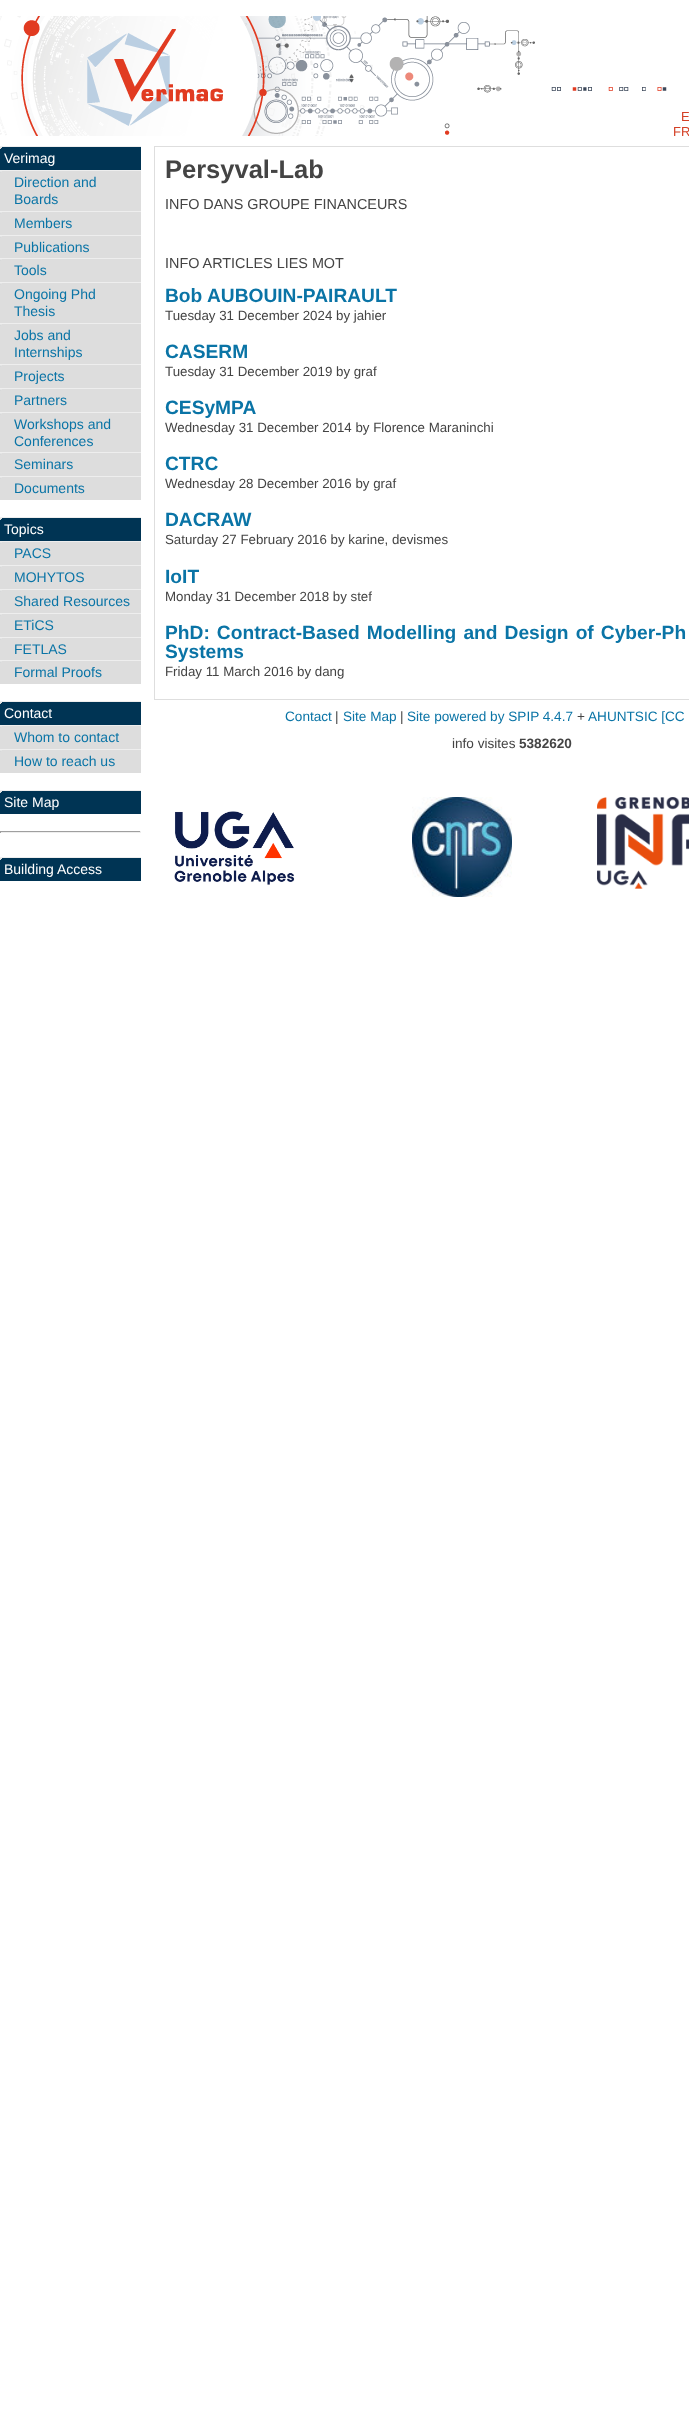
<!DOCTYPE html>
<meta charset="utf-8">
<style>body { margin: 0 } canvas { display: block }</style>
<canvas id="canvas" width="689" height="2419"></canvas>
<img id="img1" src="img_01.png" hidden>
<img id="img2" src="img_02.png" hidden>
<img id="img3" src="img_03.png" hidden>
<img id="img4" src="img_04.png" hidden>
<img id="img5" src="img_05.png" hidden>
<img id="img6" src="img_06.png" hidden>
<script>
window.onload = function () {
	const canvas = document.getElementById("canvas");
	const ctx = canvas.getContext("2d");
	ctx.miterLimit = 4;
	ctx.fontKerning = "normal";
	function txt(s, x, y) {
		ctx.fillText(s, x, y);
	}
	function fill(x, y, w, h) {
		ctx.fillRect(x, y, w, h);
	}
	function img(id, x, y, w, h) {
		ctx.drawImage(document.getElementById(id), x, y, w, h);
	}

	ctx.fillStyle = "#FFFFFF";
	fill(0, 0, 689, 2419);
	img("img1", 0, 16, 667, 120);
	ctx.fillStyle = "#EEEEEE";
	fill(0, 146, 141, 1);
	ctx.fillStyle = "#003454";
	fill(0, 147, 141, 23);
	img("img2", 0, 147, 2, 2);
	ctx.fillStyle = "#EEEEEE";
	fill(0, 170, 141, 1);
	ctx.fillStyle = "#DDDDDD";
	fill(0, 171, 141, 40);
	img("img3", 0, 171, 2, 2);
	ctx.fillStyle = "#EEEEEE";
	fill(0, 211, 141, 1);
	ctx.fillStyle = "#DDDDDD";
	fill(0, 212, 141, 23);
	img("img3", 0, 212, 2, 2);
	ctx.fillStyle = "#EEEEEE";
	fill(0, 235, 141, 1);
	ctx.fillStyle = "#DDDDDD";
	fill(0, 236, 141, 22);
	img("img3", 0, 236, 2, 2);
	ctx.fillStyle = "#EEEEEE";
	fill(0, 258, 141, 1);
	ctx.fillStyle = "#DDDDDD";
	fill(0, 259, 141, 23);
	img("img3", 0, 259, 2, 2);
	ctx.fillStyle = "#EEEEEE";
	fill(0, 282, 141, 1);
	ctx.fillStyle = "#DDDDDD";
	fill(0, 283, 141, 40);
	img("img3", 0, 283, 2, 2);
	ctx.fillStyle = "#EEEEEE";
	fill(0, 323, 141, 1);
	ctx.fillStyle = "#DDDDDD";
	fill(0, 324, 141, 40);
	img("img3", 0, 324, 2, 2);
	ctx.fillStyle = "#EEEEEE";
	fill(0, 364, 141, 1);
	ctx.fillStyle = "#DDDDDD";
	fill(0, 365, 141, 23);
	img("img3", 0, 365, 2, 2);
	ctx.fillStyle = "#EEEEEE";
	fill(0, 388, 141, 1);
	ctx.fillStyle = "#DDDDDD";
	fill(0, 389, 141, 23);
	img("img3", 0, 389, 2, 2);
	ctx.fillStyle = "#EEEEEE";
	fill(0, 412, 141, 1);
	ctx.fillStyle = "#DDDDDD";
	fill(0, 413, 141, 39);
	img("img3", 0, 413, 2, 2);
	ctx.fillStyle = "#EEEEEE";
	fill(0, 452, 141, 1);
	ctx.fillStyle = "#DDDDDD";
	fill(0, 453, 141, 23);
	img("img3", 0, 453, 2, 2);
	ctx.fillStyle = "#EEEEEE";
	fill(0, 476, 141, 1);
	ctx.fillStyle = "#DDDDDD";
	fill(0, 477, 141, 23);
	img("img3", 0, 477, 2, 2);
	ctx.fillStyle = "#EEEEEE";
	fill(0, 517, 141, 1);
	ctx.fillStyle = "#003454";
	fill(0, 518, 141, 23);
	img("img2", 0, 518, 2, 2);
	ctx.fillStyle = "#EEEEEE";
	fill(0, 541, 141, 1);
	ctx.fillStyle = "#DDDDDD";
	fill(0, 542, 141, 23);
	img("img3", 0, 542, 2, 2);
	ctx.fillStyle = "#EEEEEE";
	fill(0, 565, 141, 1);
	ctx.fillStyle = "#DDDDDD";
	fill(0, 566, 141, 23);
	img("img3", 0, 566, 2, 2);
	ctx.fillStyle = "#EEEEEE";
	fill(0, 589, 141, 1);
	ctx.fillStyle = "#DDDDDD";
	fill(0, 590, 141, 23);
	img("img3", 0, 590, 2, 2);
	ctx.fillStyle = "#EEEEEE";
	fill(0, 613, 141, 1);
	ctx.fillStyle = "#DDDDDD";
	fill(0, 614, 141, 23);
	img("img3", 0, 614, 2, 2);
	ctx.fillStyle = "#EEEEEE";
	fill(0, 637, 141, 1);
	ctx.fillStyle = "#DDDDDD";
	fill(0, 638, 141, 22);
	img("img3", 0, 638, 2, 2);
	ctx.fillStyle = "#EEEEEE";
	fill(0, 660, 141, 1);
	ctx.fillStyle = "#DDDDDD";
	fill(0, 661, 141, 23);
	img("img3", 0, 661, 2, 2);
	ctx.fillStyle = "#EEEEEE";
	fill(0, 701, 141, 1);
	ctx.fillStyle = "#003454";
	fill(0, 702, 141, 23);
	img("img2", 0, 702, 2, 2);
	ctx.fillStyle = "#EEEEEE";
	fill(0, 725, 141, 1);
	ctx.fillStyle = "#DDDDDD";
	fill(0, 726, 141, 23);
	img("img3", 0, 726, 2, 2);
	ctx.fillStyle = "#EEEEEE";
	fill(0, 749, 141, 1);
	ctx.fillStyle = "#DDDDDD";
	fill(0, 750, 141, 23);
	img("img3", 0, 750, 2, 2);
	ctx.fillStyle = "#EEEEEE";
	fill(0, 790, 141, 1);
	ctx.fillStyle = "#003454";
	fill(0, 791, 141, 23);
	img("img2", 0, 791, 2, 2);
	ctx.fillStyle = "#9F9F9F";
	fill(0, 831, 141, 1);
	ctx.fillStyle = "#EEEEEE";
	fill(140, 831, 1, 2);
	fill(0, 832, 141, 1);
	ctx.fillStyle = "#9F9F9F";
	fill(0, 831, 1, 2);
	ctx.fillStyle = "#EEEEEE";
	fill(0, 857, 141, 1);
	ctx.fillStyle = "#003454";
	fill(0, 858, 141, 23);
	img("img2", 0, 858, 2, 2);
	ctx.strokeStyle = "#DEDEDE";
	ctx.strokeRect(154.5, 146.5, 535, 553);
	img("img4", 174, 811, 121, 74);
	img("img5", 412, 797, 100, 100);
	img("img6", 597, 797, 92, 92);
	ctx.font = "13px Liberation Sans";
	ctx.fillStyle = "#D44026";
	txt("E", 681, 121);
	txt("FR", 673, 136);
	ctx.font = "14px Liberation Sans";
	ctx.fillStyle = "#FFFFFF";
	txt("Verimag", 4, 163);
	ctx.fillStyle = "#0A74A6";
	txt("Direction and", 14, 187);
	txt("Boards", 14, 204);
	txt("Members", 14, 228);
	txt("Publications", 14, 252);
	txt("Tools", 14, 275);
	txt("Ongoing Phd", 14, 299);
	txt("Thesis", 14, 316);
	txt("Jobs and", 14, 340);
	txt("Internships", 14, 357);
	txt("Projects", 14, 381);
	txt("Partners", 14, 405);
	txt("Workshops and", 14, 429);
	txt("Conferences", 14, 446);
	txt("Seminars", 14, 469);
	txt("Documents", 14, 493);
	ctx.fillStyle = "#FFFFFF";
	txt("Topics", 4, 534);
	ctx.fillStyle = "#0A74A6";
	txt("PACS", 14, 558);
	txt("MOHYTOS", 14, 582);
	txt("Shared Resources", 14, 606);
	txt("ETiCS", 14, 630);
	txt("FETLAS", 14, 654);
	txt("Formal Proofs", 14, 677);
	ctx.fillStyle = "#FFFFFF";
	txt("Contact", 4, 718);
	ctx.fillStyle = "#0A74A6";
	txt("Whom to contact", 14, 742);
	txt("How to reach us", 14, 766);
	ctx.fillStyle = "#FFFFFF";
	txt("Site Map", 4, 807);
	txt("Building", 4, 874);
	txt("Access", 57, 874);
	ctx.font = "bold 25.5px Liberation Sans";
	ctx.fillStyle = "#444444";
	txt("Persyval-Lab", 165, 178);
	ctx.font = "14.4px Liberation Sans";
	txt("INFO DANS GROUPE FINANCEURS", 165, 209);
	txt("INFO ARTICLES LIES MOT", 165, 268);
	ctx.font = "bold 19.2px Liberation Sans";
	ctx.fillStyle = "#0A74A6";
	txt("Bob AUBOUIN-PAIRAULT", 165, 302);
	ctx.font = "13.3px Liberation Sans";
	ctx.fillStyle = "#444444";
	txt("Tuesday 31 December 2024 by jahier", 165, 320);
	ctx.font = "bold 19.2px Liberation Sans";
	ctx.fillStyle = "#0A74A6";
	txt("CASERM", 165, 358);
	ctx.font = "13.3px Liberation Sans";
	ctx.fillStyle = "#444444";
	txt("Tuesday 31 December 2019 by graf", 165, 376);
	ctx.font = "bold 19.2px Liberation Sans";
	ctx.fillStyle = "#0A74A6";
	txt("CESyMPA", 165, 414);
	ctx.font = "13.3px Liberation Sans";
	ctx.fillStyle = "#444444";
	txt("Wednesday 31 December 2014 by Florence Maraninchi", 165, 432);
	ctx.font = "bold 19.2px Liberation Sans";
	ctx.fillStyle = "#0A74A6";
	txt("CTRC", 165, 470);
	ctx.font = "13.3px Liberation Sans";
	ctx.fillStyle = "#444444";
	txt("Wednesday 28 December 2016 by graf", 165, 488);
	ctx.font = "bold 19.2px Liberation Sans";
	ctx.fillStyle = "#0A74A6";
	txt("DACRAW", 165, 526);
	ctx.font = "13.3px Liberation Sans";
	ctx.fillStyle = "#444444";
	txt("Saturday 27 February 2016 by karine, devismes", 165, 544);
	ctx.font = "bold 19.2px Liberation Sans";
	ctx.fillStyle = "#0A74A6";
	txt("IoIT", 165, 583);
	ctx.font = "13.3px Liberation Sans";
	ctx.fillStyle = "#444444";
	txt("Monday 31 December 2018 by stef", 165, 601);
	ctx.wordSpacing = "1.75px";
	ctx.font = "bold 19.2px Liberation Sans";
	ctx.fillStyle = "#0A74A6";
	txt("PhD: Contract-Based Modelling and Design of Cyber-Ph", 165, 639);
	ctx.wordSpacing = "0px";
	txt("Systems", 165, 658);
	ctx.font = "13.3px Liberation Sans";
	ctx.fillStyle = "#444444";
	txt("Friday 11 March 2016 by dang", 165, 676);
	ctx.font = "13.6px Liberation Sans";
	ctx.fillStyle = "#0A74A6";
	txt("Contact", 285, 721);
	ctx.fillStyle = "#444444";
	txt("|", 335, 721);
	ctx.fillStyle = "#0A74A6";
	txt("Site Map", 343, 721);
	ctx.fillStyle = "#444444";
	txt("|", 400, 721);
	ctx.fillStyle = "#0A74A6";
	txt("Site powered by SPIP 4.4.7", 407, 721);
	ctx.fillStyle = "#444444";
	txt("+", 577, 721);
	ctx.fillStyle = "#0A74A6";
	txt("AHUNTSIC [CC", 588, 721);
	ctx.fillStyle = "#444444";
	txt("info visites", 452, 748);
	ctx.font = "bold 13.6px Liberation Sans";
	txt("5382620", 519, 748);
};
</script>
